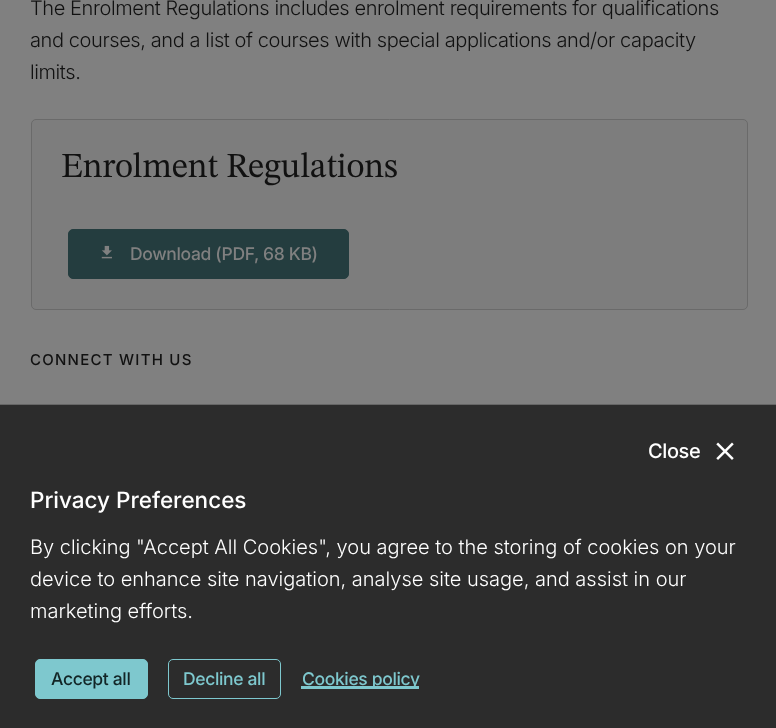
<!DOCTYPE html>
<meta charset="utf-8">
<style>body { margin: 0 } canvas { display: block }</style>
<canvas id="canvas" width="776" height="728"></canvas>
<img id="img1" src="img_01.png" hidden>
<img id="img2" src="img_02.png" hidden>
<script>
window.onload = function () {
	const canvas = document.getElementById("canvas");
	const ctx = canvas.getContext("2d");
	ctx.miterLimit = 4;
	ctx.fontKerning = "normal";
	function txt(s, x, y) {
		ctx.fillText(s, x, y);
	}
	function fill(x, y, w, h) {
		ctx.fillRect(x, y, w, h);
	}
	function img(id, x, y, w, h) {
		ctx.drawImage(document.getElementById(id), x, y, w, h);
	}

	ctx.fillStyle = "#808080";
	fill(0, 0, 776, 728);
	ctx.fillStyle = "#7D7D7D";
	ctx.beginPath();
	ctx.roundRect(31.5, 119.5, 716, 190, 4.5);
	ctx.fill();
	ctx.strokeStyle = "#6A6A6A";
	ctx.stroke();
	ctx.fillStyle = "#243D3F";
	ctx.beginPath();
	ctx.roundRect(68.5, 229.5, 280, 49, 4.5);
	ctx.fill();
	ctx.strokeStyle = "#243D3F";
	ctx.stroke();
	img("img1", 101, 245, 11, 14);
	ctx.fillStyle = "#2C2C2C";
	fill(0, 405, 776, 323);
	ctx.fillStyle = "#666666";
	fill(0, 404, 776, 1);
	img("img2", 716, 442, 18, 18);
	ctx.fillStyle = "#7EC8CE";
	ctx.beginPath();
	ctx.roundRect(35.5, 659.5, 112, 39, 4.5);
	ctx.fill();
	ctx.strokeStyle = "#7EC8CE";
	ctx.stroke();
	ctx.beginPath();
	ctx.roundRect(168.5, 659.5, 112, 39, 4.5);
	ctx.stroke();
	fill(301, 686, 118, 3);
	ctx.letterSpacing = "-0.4px";
	ctx.font = "300 20px Inter";
	ctx.fillStyle = "#111111";
	txt("The Enrolment Regulations includes enrolment requirements for qualifications", 30, 15);
	txt("and courses, and a list of courses with special applications and/or capacity", 30, 47);
	txt("limits.", 30, 79);
	ctx.letterSpacing = "-0.35px";
	ctx.font = "35px STIX Two Text";
	txt("Enrolment Regulations", 61, 177);
	ctx.font = "500 17.5px Inter";
	ctx.fillStyle = "#808080";
	txt("Download (PDF, 68 KB)", 130, 260);
	ctx.letterSpacing = "1.25px";
	ctx.font = "500 15px Inter";
	ctx.fillStyle = "#111111";
	txt("CONNECT WITH US", 30, 365);
	ctx.letterSpacing = "-0.4px";
	ctx.font = "500 20px Inter";
	ctx.fillStyle = "#FFFFFF";
	txt("Close", 648, 458);
	ctx.letterSpacing = "0px";
	ctx.font = "500 22.5px Inter";
	txt("Privacy Preferences", 30, 508);
	ctx.font = "300 20px Inter";
	txt("By clicking \"Accept All Cookies\", you agree to the storing of cookies on your", 30, 554);
	txt("device to enhance site navigation, analyse site usage, and assist in our", 30, 586);
	txt("marketing efforts.", 30, 618);
	ctx.letterSpacing = "-0.35px";
	ctx.font = "500 17.5px Inter";
	ctx.fillStyle = "#122526";
	txt("Accept all", 51, 685);
	ctx.fillStyle = "#7EC8CE";
	txt("Decline all", 183, 685);
	txt("Cookies policy", 302, 685);
};
</script>
